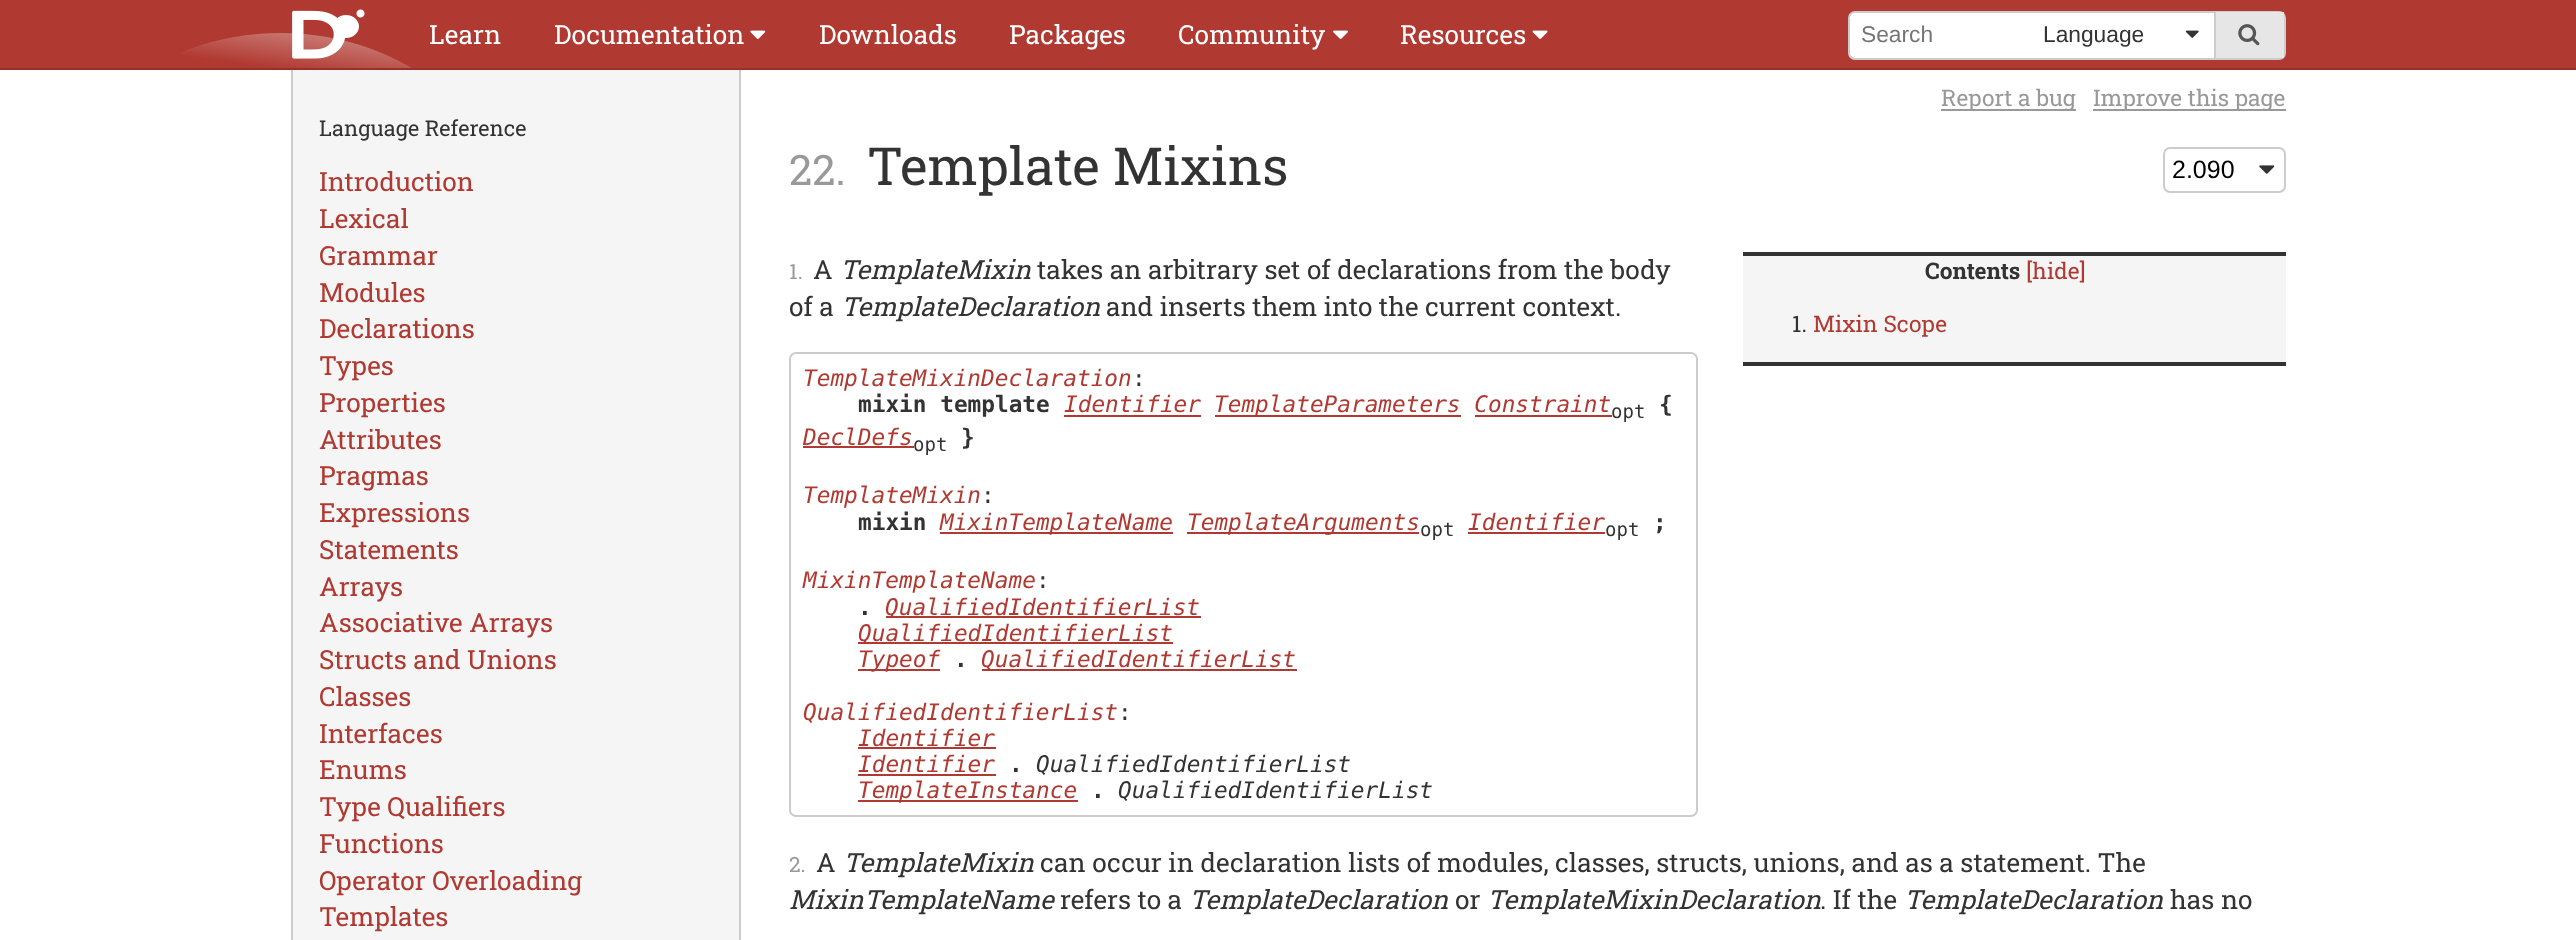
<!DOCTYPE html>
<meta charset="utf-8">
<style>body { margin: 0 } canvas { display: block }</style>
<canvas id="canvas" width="2576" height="940"></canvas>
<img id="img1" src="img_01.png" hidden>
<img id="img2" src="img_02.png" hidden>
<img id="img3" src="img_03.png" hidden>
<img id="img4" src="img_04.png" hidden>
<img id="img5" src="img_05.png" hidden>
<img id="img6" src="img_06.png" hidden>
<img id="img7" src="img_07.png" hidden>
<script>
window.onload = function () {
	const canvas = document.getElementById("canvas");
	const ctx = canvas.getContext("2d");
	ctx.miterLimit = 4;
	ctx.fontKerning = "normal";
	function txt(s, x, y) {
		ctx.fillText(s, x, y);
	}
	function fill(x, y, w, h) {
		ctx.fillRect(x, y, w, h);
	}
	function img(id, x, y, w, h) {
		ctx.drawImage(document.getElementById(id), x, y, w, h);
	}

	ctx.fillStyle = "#FFFFFF";
	fill(0, 0, 2576, 940);
	ctx.fillStyle = "#B03931";
	fill(0, 0, 2576, 68);
	ctx.fillStyle = "#98312A";
	fill(0, 68, 2576, 2);
	img("img1", 181, 9, 230, 59);
	img("img2", 750, 30, 16, 9);
	img("img3", 1333, 30, 15, 9);
	img("img4", 1532, 30, 16, 9);
	ctx.fillStyle = "#FFFFFF";
	ctx.beginPath();
	ctx.roundRect(1849, 12, 436, 47, 6);
	ctx.fill();
	ctx.strokeStyle = "#CCCCCC";
	ctx.lineWidth = 2;
	ctx.stroke();
	img("img5", 2185, 30, 14, 8);
	ctx.fillStyle = "#E6E6E6";
	fill(2216, 12, 68, 46);
	ctx.fillStyle = "#CCCCCC";
	fill(2214, 12, 2, 46);
	img("img6", 2238, 24, 22, 22);
	ctx.fillStyle = "#F5F5F5";
	fill(293, 70, 446, 870);
	ctx.fillStyle = "#CCCCCC";
	fill(291, 70, 2, 870);
	fill(739, 70, 2, 870);
	ctx.fillStyle = "#999999";
	fill(1941, 109, 135, 2);
	fill(2093, 109, 193, 2);
	ctx.beginPath();
	ctx.roundRect(2164, 148, 121, 44, 6);
	ctx.stroke();
	img("img7", 2259, 165, 16, 9);
	ctx.fillStyle = "#F5F5F5";
	fill(1743, 256, 543, 106);
	ctx.fillStyle = "#333333";
	fill(1743, 252, 543, 4);
	fill(1743, 362, 543, 4);
	ctx.beginPath();
	ctx.roundRect(790, 353, 907, 463, 6);
	ctx.stroke();
	ctx.fillStyle = "#B03931";
	fill(1064, 415, 137, 2);
	fill(1215, 415, 246, 2);
	fill(1475, 415, 137, 2);
	fill(803, 446, 111, 2);
	fill(940, 532, 233, 2);
	fill(1187, 532, 232, 2);
	fill(1468, 532, 137, 2);
	fill(886, 616, 315, 2);
	fill(858, 642, 315, 2);
	fill(858, 669, 82, 2);
	fill(982, 669, 315, 2);
	fill(858, 747, 138, 2);
	fill(858, 774, 138, 2);
	fill(858, 800, 220, 2);
	ctx.font = "26.25px Roboto Slab";
	ctx.fillStyle = "#FFFFFF";
	txt("Learn", 429, 44);
	txt("Documentation", 554, 44);
	txt("Downloads", 819, 44);
	txt("Packages", 1009, 44);
	txt("Community", 1178, 44);
	txt("Resources", 1400, 44);
	ctx.font = "22.75px Liberation Sans";
	ctx.fillStyle = "#757575";
	txt("Search", 1861, 42);
	ctx.fillStyle = "#333333";
	txt("Language", 2043, 42);
	ctx.font = "21.75px Roboto Slab";
	txt("Language Reference", 319, 136);
	ctx.font = "26.25px Roboto Slab";
	ctx.fillStyle = "#B03931";
	txt("Introduction", 319, 191);
	txt("Lexical", 319, 228);
	txt("Grammar", 319, 265);
	txt("Modules", 319, 302);
	txt("Declarations", 319, 338);
	txt("Types", 319, 375);
	txt("Properties", 319, 412);
	txt("Attributes", 319, 449);
	txt("Pragmas", 319, 485);
	txt("Expressions", 319, 522);
	txt("Statements", 319, 559);
	txt("Arrays", 319, 596);
	txt("Associative Arrays", 319, 632);
	txt("Structs and Unions", 319, 669);
	txt("Classes", 319, 706);
	txt("Interfaces", 319, 743);
	txt("Enums", 319, 779);
	txt("Type Qualifiers", 319, 816);
	txt("Functions", 319, 853);
	txt("Operator Overloading", 319, 890);
	txt("Templates", 319, 926);
	ctx.font = "22.75px Roboto Slab";
	ctx.fillStyle = "#999999";
	txt("Report a bug", 1941, 106);
	txt("Improve this page", 2093, 106);
	ctx.font = "42px Roboto Slab";
	txt("22.", 789, 185);
	ctx.font = "52.5px Roboto Slab";
	ctx.fillStyle = "#333333";
	txt("Template Mixins", 867, 185);
	ctx.font = "25px Liberation Sans";
	ctx.fillStyle = "#000000";
	txt("2.090", 2172, 178);
	ctx.font = "21px Roboto Slab";
	ctx.fillStyle = "#999999";
	txt("1.", 789, 279);
	ctx.font = "26.25px Roboto Slab";
	ctx.fillStyle = "#333333";
	txt("A", 813, 279);
	ctx.font = "italic 26.25px Roboto Slab";
	txt("TemplateMixin", 840, 279);
	ctx.font = "26.25px Roboto Slab";
	txt("takes an arbitrary set of declarations from the body", 1037, 279);
	txt("of a", 789, 316);
	ctx.font = "italic 26.25px Roboto Slab";
	txt("TemplateDeclaration", 841, 316);
	ctx.font = "26.25px Roboto Slab";
	txt("and inserts them into the current context.", 1106, 316);
	ctx.font = "bold 22.75px Roboto Slab";
	txt("Contents", 1925, 279);
	ctx.font = "22.75px Roboto Slab";
	ctx.fillStyle = "#B03931";
	txt("[hide]", 2026, 279);
	ctx.fillStyle = "#333333";
	txt("1.", 1792, 332);
	ctx.fillStyle = "#B03931";
	txt("Mixin Scope", 1813, 332);
	ctx.font = "italic 22.75px DejaVu Sans Mono";
	txt("TemplateMixinDeclaration", 803, 386);
	ctx.font = "22.75px DejaVu Sans Mono";
	ctx.fillStyle = "#333333";
	txt(":", 1132, 386);
	ctx.font = "bold 22.75px DejaVu Sans Mono";
	txt("mixin template", 858, 412);
	ctx.font = "italic 22.75px DejaVu Sans Mono";
	ctx.fillStyle = "#B03931";
	txt("Identifier", 1064, 412);
	txt("TemplateParameters Constraint", 1214, 412);
	ctx.font = "19px DejaVu Sans Mono";
	ctx.fillStyle = "#333333";
	txt("opt", 1611, 418);
	ctx.font = "bold 22.75px DejaVu Sans Mono";
	txt("{", 1659, 412);
	ctx.font = "italic 22.75px DejaVu Sans Mono";
	ctx.fillStyle = "#B03931";
	txt("DeclDefs", 803, 445);
	ctx.font = "19px DejaVu Sans Mono";
	ctx.fillStyle = "#333333";
	txt("opt", 913, 451);
	ctx.font = "bold 22.75px DejaVu Sans Mono";
	txt("}", 961, 445);
	ctx.font = "italic 22.75px DejaVu Sans Mono";
	ctx.fillStyle = "#B03931";
	txt("TemplateMixin", 803, 503);
	ctx.font = "22.75px DejaVu Sans Mono";
	ctx.fillStyle = "#333333";
	txt(":", 981, 503);
	ctx.font = "bold 22.75px DejaVu Sans Mono";
	txt("mixin", 858, 530);
	ctx.font = "italic 22.75px DejaVu Sans Mono";
	ctx.fillStyle = "#B03931";
	txt("MixinTemplateName", 940, 530);
	txt("TemplateArguments", 1187, 530);
	ctx.font = "19px DejaVu Sans Mono";
	ctx.fillStyle = "#333333";
	txt("opt", 1420, 536);
	ctx.font = "italic 22.75px DejaVu Sans Mono";
	ctx.fillStyle = "#B03931";
	txt("Identifier", 1468, 530);
	ctx.font = "19px DejaVu Sans Mono";
	ctx.fillStyle = "#333333";
	txt("opt", 1605, 536);
	ctx.font = "bold 22.75px DejaVu Sans Mono";
	txt(";", 1653, 530);
	ctx.font = "italic 22.75px DejaVu Sans Mono";
	ctx.fillStyle = "#B03931";
	txt("MixinTemplateName", 803, 588);
	ctx.font = "22.75px DejaVu Sans Mono";
	ctx.fillStyle = "#333333";
	txt(":", 1036, 588);
	ctx.font = "bold 22.75px DejaVu Sans Mono";
	txt(".", 858, 615);
	ctx.font = "italic 22.75px DejaVu Sans Mono";
	ctx.fillStyle = "#B03931";
	txt("QualifiedIdentifierList", 885, 615);
	txt("QualifiedIdentifierList", 858, 641);
	txt("Typeof", 858, 667);
	ctx.font = "bold 22.75px DejaVu Sans Mono";
	ctx.fillStyle = "#333333";
	txt(".", 954, 667);
	ctx.font = "italic 22.75px DejaVu Sans Mono";
	ctx.fillStyle = "#B03931";
	txt("QualifiedIdentifierList", 981, 667);
	txt("QualifiedIdentifierList", 803, 720);
	ctx.font = "22.75px DejaVu Sans Mono";
	ctx.fillStyle = "#333333";
	txt(":", 1118, 720);
	ctx.font = "italic 22.75px DejaVu Sans Mono";
	ctx.fillStyle = "#B03931";
	txt("Identifier", 858, 746);
	txt("Identifier", 858, 772);
	ctx.font = "bold 22.75px DejaVu Sans Mono";
	ctx.fillStyle = "#333333";
	txt(".", 1009, 772);
	ctx.font = "italic 22.75px DejaVu Sans Mono";
	txt("QualifiedIdentifierList", 1036, 772);
	ctx.fillStyle = "#B03931";
	txt("TemplateInstance", 858, 798);
	ctx.font = "bold 22.75px DejaVu Sans Mono";
	ctx.fillStyle = "#333333";
	txt(".", 1091, 798);
	ctx.font = "italic 22.75px DejaVu Sans Mono";
	txt("QualifiedIdentifierList", 1118, 798);
	ctx.font = "21px Roboto Slab";
	ctx.fillStyle = "#999999";
	txt("2.", 789, 872);
	ctx.font = "26.25px Roboto Slab";
	ctx.fillStyle = "#333333";
	txt("A", 816, 872);
	ctx.font = "italic 26.25px Roboto Slab";
	txt("TemplateMixin", 843, 872);
	ctx.font = "26.25px Roboto Slab";
	txt("can occur in declaration lists of modules, classes, structs, unions, and as a statement. The", 1040, 872);
	ctx.font = "italic 26.25px Roboto Slab";
	txt("MixinTemplateName", 789, 909);
	ctx.font = "26.25px Roboto Slab";
	txt("refers to a", 1060, 909);
	ctx.font = "italic 26.25px Roboto Slab";
	txt("TemplateDeclaration", 1189, 909);
	ctx.font = "26.25px Roboto Slab";
	txt("or", 1455, 909);
	ctx.font = "italic 26.25px Roboto Slab";
	txt("TemplateMixinDeclaration", 1487, 909);
	ctx.font = "26.25px Roboto Slab";
	txt(". If the", 1820, 909);
	ctx.font = "italic 26.25px Roboto Slab";
	txt("TemplateDeclaration", 1904, 909);
	ctx.font = "26.25px Roboto Slab";
	txt("has no", 2170, 909);
};
</script>
